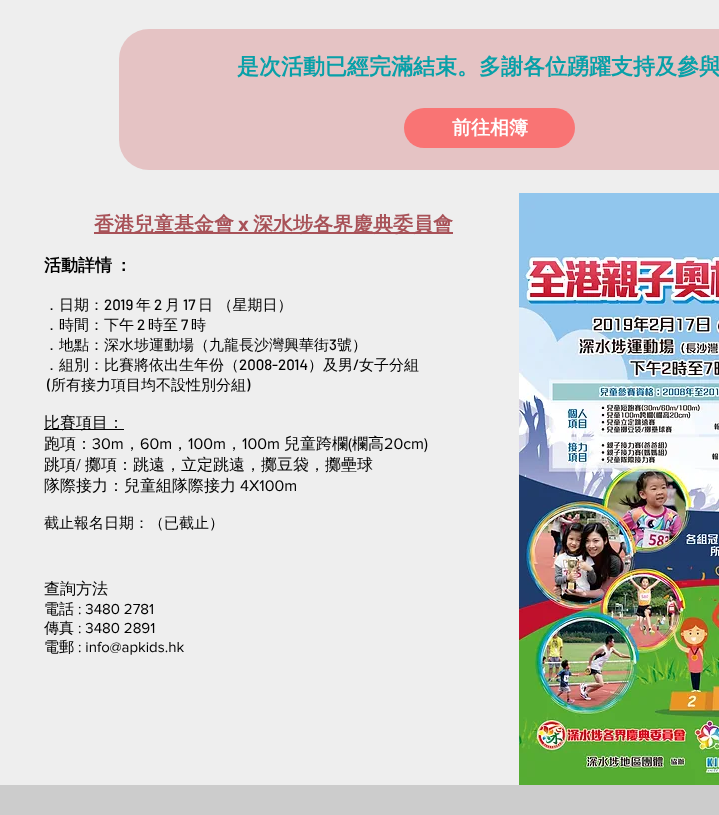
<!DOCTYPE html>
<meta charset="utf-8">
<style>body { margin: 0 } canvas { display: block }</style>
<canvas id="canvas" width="719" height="815"></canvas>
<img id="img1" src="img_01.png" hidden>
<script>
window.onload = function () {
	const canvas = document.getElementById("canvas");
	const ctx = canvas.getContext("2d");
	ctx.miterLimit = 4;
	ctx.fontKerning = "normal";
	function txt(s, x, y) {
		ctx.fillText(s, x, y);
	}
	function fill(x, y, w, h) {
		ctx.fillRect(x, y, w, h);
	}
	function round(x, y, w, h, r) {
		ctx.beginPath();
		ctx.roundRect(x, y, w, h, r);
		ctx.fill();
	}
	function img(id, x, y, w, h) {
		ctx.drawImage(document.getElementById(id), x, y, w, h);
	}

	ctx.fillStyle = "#EEEEEE";
	fill(0, 0, 719, 815);
	ctx.fillStyle = "#E5C3C4";
	round(119, 29, 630, 141, 30);
	ctx.fillStyle = "#F97474";
	round(404, 108, 171, 40, 20);
	ctx.fillStyle = "#A85258";
	fill(94, 232, 359, 2);
	ctx.fillStyle = "#000000";
	fill(44, 429, 80, 1);
	img("img1", 519, 193, 200, 592);
	ctx.fillStyle = "#CCCCCC";
	fill(0, 785, 719, 30);
	ctx.font = "bold 22px WenQuanYi Zen Hei";
	ctx.fillStyle = "#08A0A8";
	txt("是次活動已經完滿結束。多謝各位踴躍支持及參與", 237, 74);
	ctx.font = "bold 19px WenQuanYi Zen Hei";
	ctx.fillStyle = "#FFFFFF";
	txt("前往相簿", 452, 134);
	ctx.font = "bold 20px WenQuanYi Zen Hei";
	ctx.fillStyle = "#A85258";
	txt("香港兒童基金會", 94, 231);
	ctx.font = "bold 20px Barlow";
	txt("x", 238, 231);
	ctx.font = "bold 20px WenQuanYi Zen Hei";
	txt("深水埗各界慶典委員會", 253, 231);
	ctx.font = "bold 17px WenQuanYi Zen Hei";
	ctx.fillStyle = "#000000";
	txt("活動詳情", 44, 271);
	txt("：", 115, 271);
	ctx.font = "500 15px WenQuanYi Zen Hei";
	txt("．日期：", 44, 310);
	ctx.font = "500 15px Barlow";
	txt("2019", 104, 310);
	ctx.font = "500 15px WenQuanYi Zen Hei";
	txt("年", 136, 310);
	ctx.font = "500 15px Barlow";
	txt("2", 154, 310);
	ctx.font = "500 15px WenQuanYi Zen Hei";
	txt("月", 165, 310);
	ctx.font = "500 15px Barlow";
	txt("17", 183, 310);
	ctx.font = "500 15px WenQuanYi Zen Hei";
	txt("日 （星期日）", 198, 310);
	txt("．時間：下午", 44, 330);
	ctx.font = "500 15px Barlow";
	txt("2", 137, 330);
	ctx.font = "500 15px WenQuanYi Zen Hei";
	txt("時至", 148, 330);
	ctx.font = "500 15px Barlow";
	txt("7", 181, 330);
	ctx.font = "500 15px WenQuanYi Zen Hei";
	txt("時", 191, 330);
	txt("．地點：深水埗運動場（九龍長沙灣興華街", 44, 350);
	ctx.font = "500 15px Barlow";
	txt("3", 329, 350);
	ctx.font = "500 15px WenQuanYi Zen Hei";
	txt("號）", 337, 350);
	txt("．組別：比賽將依出生年份（", 44, 370);
	ctx.font = "500 15px Barlow";
	txt("2008-2014", 239, 370);
	ctx.font = "500 15px WenQuanYi Zen Hei";
	txt("）及男", 308, 370);
	ctx.font = "500 15px Barlow";
	txt("/", 353, 370);
	ctx.font = "500 15px WenQuanYi Zen Hei";
	txt("女子分組", 359, 370);
	ctx.font = "500 15px Barlow";
	txt("(", 47, 390);
	ctx.font = "500 15px WenQuanYi Zen Hei";
	txt("所有接力項目均不設性別分組", 51, 390);
	ctx.font = "500 15px Barlow";
	txt(")", 246, 390);
	ctx.font = "500 16px WenQuanYi Zen Hei";
	txt("比賽項目：", 44, 428);
	txt("跑項：", 44, 449);
	ctx.font = "16px 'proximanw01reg'";
	txt("30m", 92, 449);
	ctx.font = "500 16px WenQuanYi Zen Hei";
	txt("，", 124, 449);
	ctx.font = "16px 'proximanw01reg'";
	txt("60m", 140, 449);
	ctx.font = "500 16px WenQuanYi Zen Hei";
	txt("，", 172, 449);
	ctx.font = "16px 'proximanw01reg'";
	txt("100m", 188, 449);
	ctx.font = "500 16px WenQuanYi Zen Hei";
	txt("，", 226, 449);
	ctx.font = "16px 'proximanw01reg'";
	txt("100m", 242, 449);
	ctx.font = "500 16px WenQuanYi Zen Hei";
	txt("兒童跨欄", 284, 449);
	ctx.font = "16px 'proximanw01reg'";
	txt("(", 348, 449);
	ctx.font = "500 16px WenQuanYi Zen Hei";
	txt("欄高", 352, 449);
	ctx.font = "16px 'proximanw01reg'";
	txt("20cm)", 384, 449);
	ctx.font = "500 16px WenQuanYi Zen Hei";
	txt("跳項", 44, 470);
	ctx.font = "16px 'proximanw01reg'";
	txt("/", 76, 470);
	ctx.font = "500 16px WenQuanYi Zen Hei";
	txt("擲項：跳遠，立定跳遠，擲豆袋，擲壘球", 85, 470);
	txt("隊際接力：兒童組隊際接力", 44, 491);
	ctx.font = "16px 'proximanw01reg'";
	txt("4X100m", 240, 491);
	ctx.font = "500 15px WenQuanYi Zen Hei";
	txt("截止報名日期：（已截止）", 44, 528);
	ctx.font = "500 16px WenQuanYi Zen Hei";
	txt("查詢方法", 44, 594);
	ctx.font = "500 15px WenQuanYi Zen Hei";
	txt("電話", 44, 614);
	ctx.font = "15px 'proximanw01reg'";
	txt(": 3480 2781", 78, 614);
	ctx.font = "500 15px WenQuanYi Zen Hei";
	txt("傳真", 44, 633);
	ctx.font = "15px 'proximanw01reg'";
	txt(": 3480 2891", 78, 633);
	ctx.font = "500 15px WenQuanYi Zen Hei";
	txt("電郵", 44, 652);
	ctx.font = "15px 'proximanw01reg'";
	txt(": info@apkids.hk", 78, 652);
};
</script>
